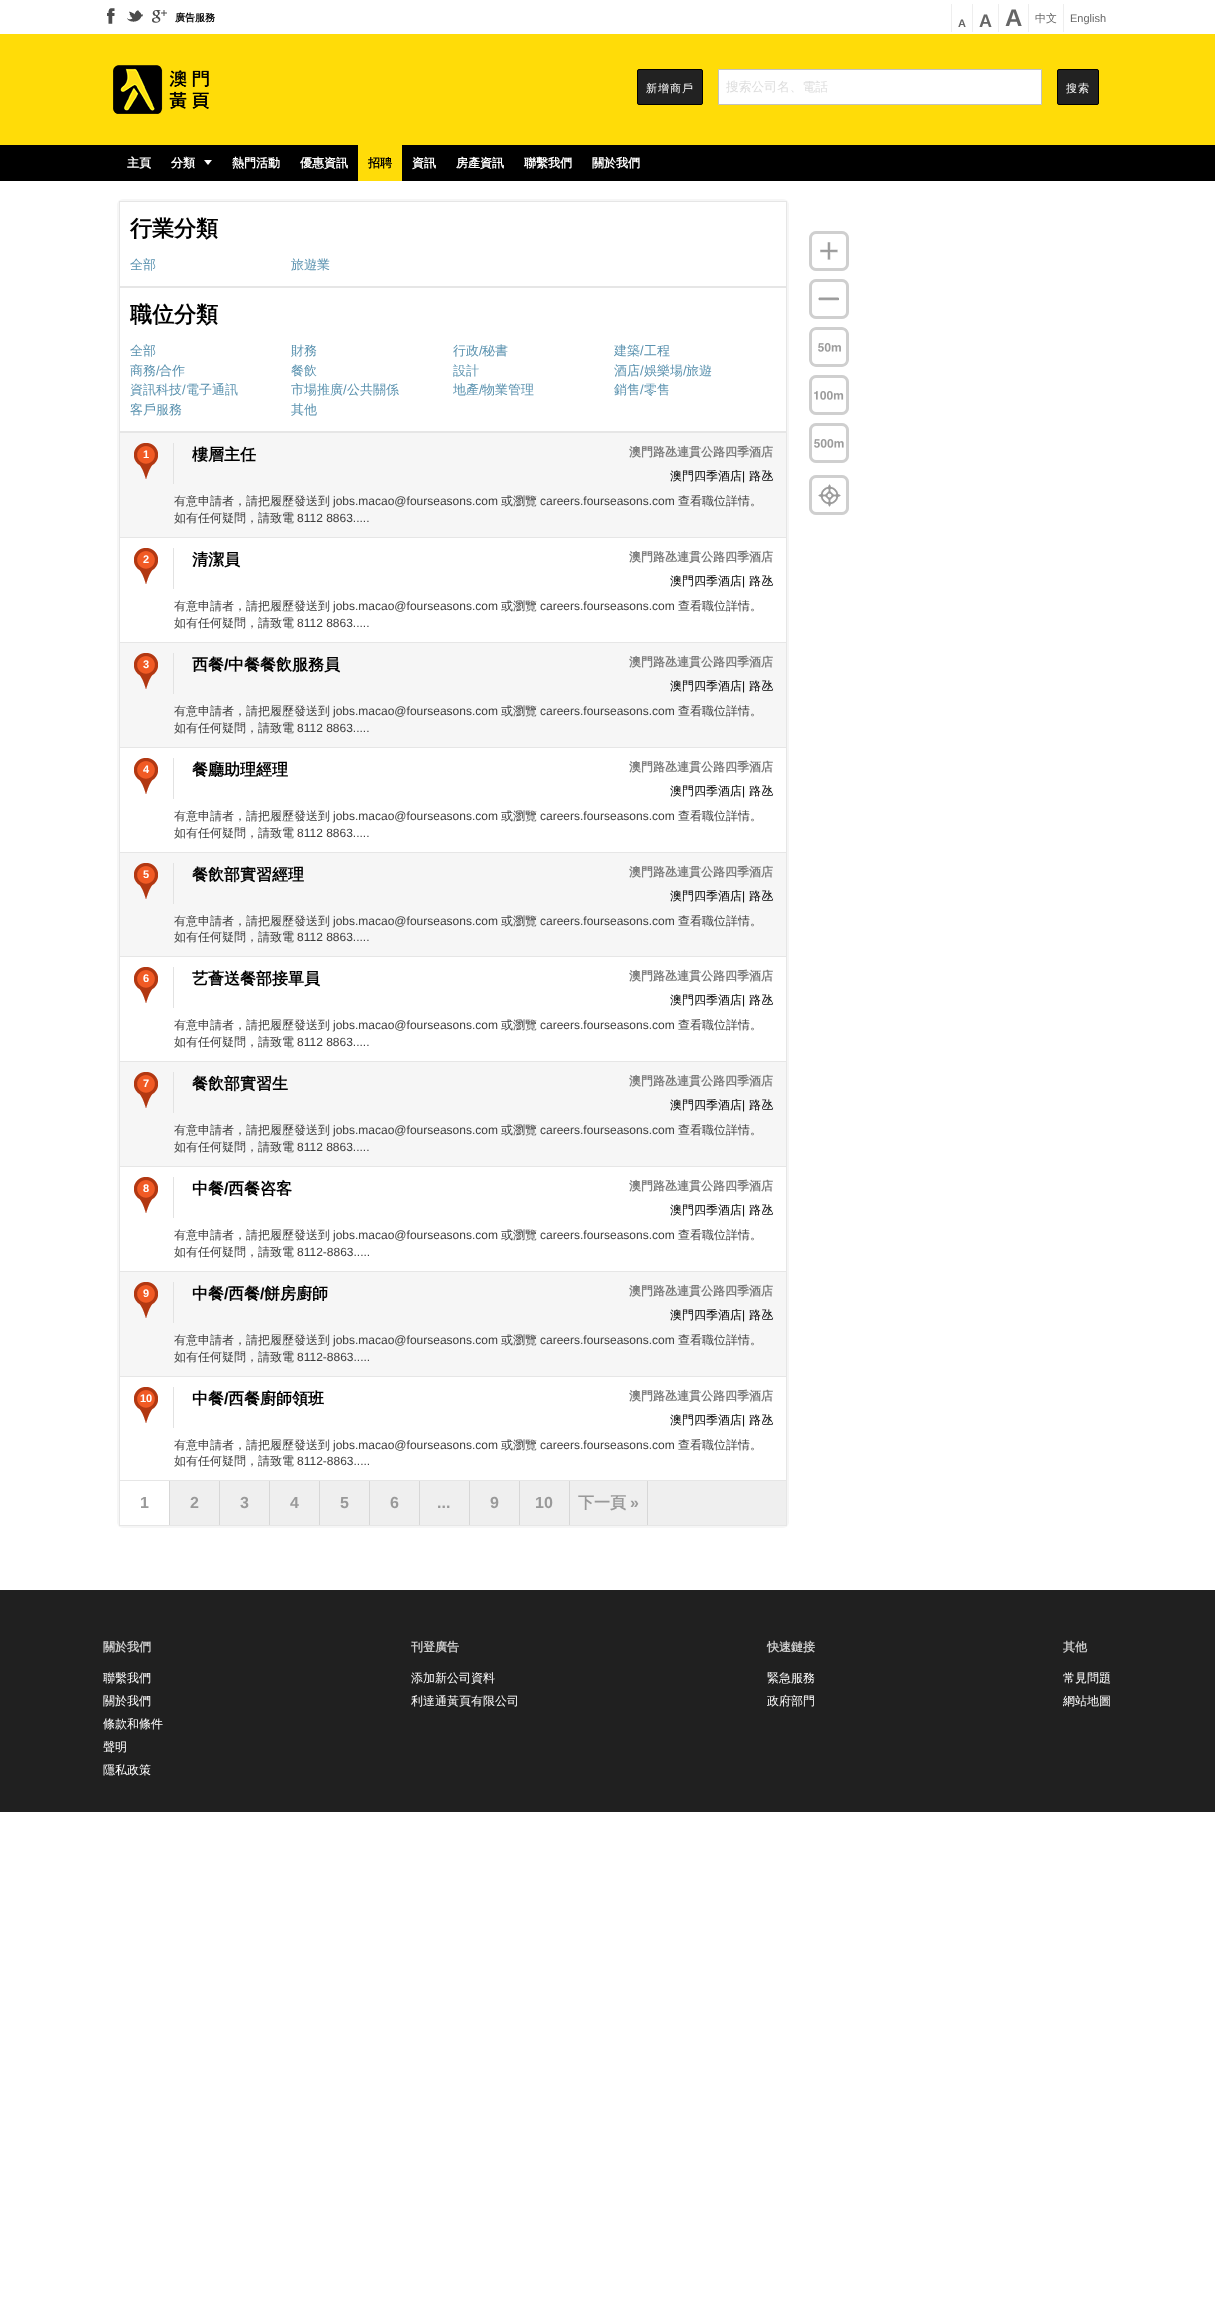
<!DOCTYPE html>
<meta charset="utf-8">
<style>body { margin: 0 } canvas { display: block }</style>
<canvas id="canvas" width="1215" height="2316"></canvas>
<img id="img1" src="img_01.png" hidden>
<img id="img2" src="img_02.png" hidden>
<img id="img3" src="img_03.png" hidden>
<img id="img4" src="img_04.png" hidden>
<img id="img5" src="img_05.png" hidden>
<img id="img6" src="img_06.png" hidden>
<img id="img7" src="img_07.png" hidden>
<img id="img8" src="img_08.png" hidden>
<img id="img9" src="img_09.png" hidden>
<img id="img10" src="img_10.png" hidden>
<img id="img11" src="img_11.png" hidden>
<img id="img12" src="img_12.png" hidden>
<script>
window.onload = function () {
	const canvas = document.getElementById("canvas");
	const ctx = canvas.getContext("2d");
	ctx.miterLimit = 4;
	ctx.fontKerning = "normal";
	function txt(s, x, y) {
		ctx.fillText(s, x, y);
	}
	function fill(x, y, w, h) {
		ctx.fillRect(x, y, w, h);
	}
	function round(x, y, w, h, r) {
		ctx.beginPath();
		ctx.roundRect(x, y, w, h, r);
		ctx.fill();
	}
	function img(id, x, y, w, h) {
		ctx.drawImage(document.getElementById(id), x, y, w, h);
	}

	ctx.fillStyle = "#FFFFFF";
	fill(0, 0, 1215, 2316);
	img("img1", 107, 8, 8, 16);
	img("img2", 127, 10, 16, 12);
	img("img3", 152, 10, 15, 13);
	ctx.fillStyle = "#EEEEEE";
	fill(951, 4, 1, 28);
	fill(972, 4, 1, 28);
	fill(998, 4, 1, 28);
	fill(1028, 4, 1, 28);
	fill(1063, 4, 1, 28);
	ctx.fillStyle = "#FFDC08";
	fill(0, 34, 1215, 111);
	img("img4", 113, 65, 96, 49);
	ctx.fillStyle = "#222222";
	ctx.beginPath();
	ctx.roundRect(637.5, 69.5, 65, 35, 1.5);
	ctx.fill();
	ctx.strokeStyle = "#000000";
	ctx.stroke();
	ctx.fillStyle = "#FFFFFF";
	ctx.beginPath();
	ctx.rect(718.5, 69.5, 323, 35);
	ctx.fill();
	ctx.strokeStyle = "#C2C2C2";
	ctx.stroke();
	ctx.fillStyle = "#222222";
	ctx.beginPath();
	ctx.roundRect(1057.5, 69.5, 41, 35, 1.5);
	ctx.fill();
	ctx.strokeStyle = "#000000";
	ctx.stroke();
	ctx.fillStyle = "#000000";
	fill(0, 145, 1215, 36);
	ctx.fillStyle = "#FFFFFF";
	ctx.beginPath();
	ctx.moveTo(204, 160);
	ctx.lineTo(212, 160);
	ctx.lineTo(208, 165);
	ctx.closePath();
	ctx.fill();
	ctx.fillStyle = "#FFDC08";
	fill(358, 145, 44, 36);
	ctx.fillStyle = "#F6F6F6";
	round(117, 199, 672, 1329, 6);
	ctx.strokeStyle = "#E6E6E6";
	ctx.strokeRect(119.5, 201.5, 667, 1324);
	ctx.fillStyle = "#FFFFFF";
	fill(120, 202, 666, 84);
	ctx.fillStyle = "#E6E6E6";
	fill(120, 286, 666, 2);
	ctx.fillStyle = "#FFFFFF";
	fill(120, 288, 666, 143);
	ctx.fillStyle = "#E6E6E6";
	fill(120, 431, 666, 2);
	fill(120, 537, 666, 1);
	ctx.fillStyle = "#E2E2E2";
	fill(173, 443, 1, 41);
	img("img5", 134, 443, 24, 36);
	ctx.fillStyle = "#FFFFFF";
	fill(120, 538, 666, 104);
	ctx.fillStyle = "#E6E6E6";
	fill(120, 642, 666, 1);
	ctx.fillStyle = "#E2E2E2";
	fill(173, 548, 1, 41);
	img("img6", 134, 548, 24, 36);
	ctx.fillStyle = "#E6E6E6";
	fill(120, 747, 666, 1);
	ctx.fillStyle = "#E2E2E2";
	fill(173, 653, 1, 41);
	img("img5", 134, 653, 24, 36);
	ctx.fillStyle = "#FFFFFF";
	fill(120, 748, 666, 104);
	ctx.fillStyle = "#E6E6E6";
	fill(120, 852, 666, 1);
	ctx.fillStyle = "#E2E2E2";
	fill(173, 758, 1, 41);
	img("img6", 134, 758, 24, 36);
	ctx.fillStyle = "#E6E6E6";
	fill(120, 956, 666, 1);
	ctx.fillStyle = "#E2E2E2";
	fill(173, 863, 1, 41);
	img("img5", 134, 863, 24, 36);
	ctx.fillStyle = "#FFFFFF";
	fill(120, 957, 666, 104);
	ctx.fillStyle = "#E6E6E6";
	fill(120, 1061, 666, 1);
	ctx.fillStyle = "#E2E2E2";
	fill(173, 967, 1, 41);
	img("img6", 134, 967, 24, 36);
	ctx.fillStyle = "#E6E6E6";
	fill(120, 1166, 666, 1);
	ctx.fillStyle = "#E2E2E2";
	fill(173, 1072, 1, 41);
	img("img5", 134, 1072, 24, 36);
	ctx.fillStyle = "#FFFFFF";
	fill(120, 1167, 666, 104);
	ctx.fillStyle = "#E6E6E6";
	fill(120, 1271, 666, 1);
	ctx.fillStyle = "#E2E2E2";
	fill(173, 1177, 1, 41);
	img("img6", 134, 1177, 24, 36);
	ctx.fillStyle = "#E6E6E6";
	fill(120, 1376, 666, 1);
	ctx.fillStyle = "#E2E2E2";
	fill(173, 1282, 1, 41);
	img("img5", 134, 1282, 24, 36);
	ctx.fillStyle = "#FFFFFF";
	fill(120, 1377, 666, 103);
	ctx.fillStyle = "#D7D7D7";
	fill(169, 1480, 1, 45);
	ctx.fillStyle = "#E6E6E6";
	fill(120, 1480, 666, 1);
	ctx.fillStyle = "#E2E2E2";
	fill(173, 1387, 1, 41);
	img("img6", 134, 1387, 24, 36);
	ctx.fillStyle = "#EFEFEF";
	fill(170, 1481, 616, 44);
	ctx.fillStyle = "#FFFFFF";
	fill(120, 1481, 49, 44);
	ctx.fillStyle = "#D7D7D7";
	fill(219, 1481, 1, 44);
	fill(269, 1481, 1, 44);
	fill(319, 1481, 1, 44);
	fill(369, 1481, 1, 44);
	fill(419, 1481, 1, 44);
	fill(469, 1481, 1, 44);
	fill(519, 1481, 1, 44);
	fill(569, 1481, 1, 44);
	fill(647, 1481, 1, 44);
	img("img7", 809, 231, 40, 40);
	img("img8", 809, 279, 40, 40);
	img("img9", 809, 327, 40, 40);
	img("img10", 809, 375, 40, 40);
	img("img11", 809, 423, 40, 40);
	img("img12", 809, 475, 40, 40);
	ctx.fillStyle = "#202020";
	fill(0, 1590, 1215, 222);
	ctx.font = "bold 10px WenQuanYi Zen Hei";
	ctx.fillStyle = "#000000";
	txt("廣告服務", 175, 21);
	ctx.font = "bold 11px Liberation Sans";
	ctx.fillStyle = "#666666";
	txt("A", 958, 27);
	ctx.font = "bold 18px Liberation Sans";
	txt("A", 979, 27);
	ctx.font = "bold 24px Liberation Sans";
	txt("A", 1005, 26);
	ctx.font = "500 11px WenQuanYi Zen Hei";
	txt("中文", 1035, 22);
	ctx.font = "11px Liberation Sans";
	txt("English", 1070, 22);
	ctx.letterSpacing = "1px";
	ctx.font = "500 11px WenQuanYi Zen Hei";
	ctx.fillStyle = "#FFFFFF";
	txt("新增商戶", 646, 92);
	ctx.letterSpacing = "0px";
	ctx.font = "500 12.75px WenQuanYi Zen Hei";
	ctx.fillStyle = "#DDDDDD";
	txt("搜索公司名、電話", 726, 91);
	ctx.letterSpacing = "1px";
	ctx.font = "500 11px WenQuanYi Zen Hei";
	ctx.fillStyle = "#FFFFFF";
	txt("搜索", 1066, 92);
	ctx.letterSpacing = "0px";
	ctx.font = "bold 12px WenQuanYi Zen Hei";
	txt("主頁", 127, 167);
	txt("分類", 171, 167);
	txt("熱門活動", 232, 167);
	txt("優惠資訊", 300, 167);
	ctx.fillStyle = "#000000";
	txt("招聘", 368, 167);
	ctx.fillStyle = "#FFFFFF";
	txt("資訊", 412, 167);
	txt("房產資訊", 456, 167);
	txt("聯繫我們", 524, 167);
	txt("關於我們", 592, 167);
	ctx.font = "bold 22px WenQuanYi Zen Hei";
	ctx.fillStyle = "#000000";
	txt("行業分類", 130, 236);
	ctx.font = "500 13px WenQuanYi Zen Hei";
	ctx.fillStyle = "#5A92AF";
	txt("全部", 130, 269);
	txt("旅遊業", 291, 269);
	ctx.font = "bold 22px WenQuanYi Zen Hei";
	ctx.fillStyle = "#000000";
	txt("職位分類", 130, 322);
	ctx.font = "500 13px WenQuanYi Zen Hei";
	ctx.fillStyle = "#5A92AF";
	txt("全部", 130, 355);
	txt("財務", 291, 355);
	txt("行政", 453, 355);
	ctx.font = "13px Liberation Sans";
	txt("/", 479, 355);
	ctx.font = "500 13px WenQuanYi Zen Hei";
	txt("秘書", 482, 355);
	txt("建築", 614, 355);
	ctx.font = "13px Liberation Sans";
	txt("/", 640, 355);
	ctx.font = "500 13px WenQuanYi Zen Hei";
	txt("工程", 644, 355);
	txt("商務", 130, 375);
	ctx.font = "13px Liberation Sans";
	txt("/", 156, 375);
	ctx.font = "500 13px WenQuanYi Zen Hei";
	txt("合作", 159, 375);
	txt("餐飲", 291, 375);
	ctx.save();
	ctx.beginPath();
	ctx.rect(453, 361, 161, 19);
	ctx.clip();
	txt("設計", 453, 375);
	ctx.restore();
	txt("酒店", 614, 375);
	ctx.font = "13px Liberation Sans";
	txt("/", 640, 375);
	ctx.font = "500 13px WenQuanYi Zen Hei";
	txt("娛樂場", 644, 375);
	ctx.font = "13px Liberation Sans";
	txt("/", 683, 375);
	ctx.font = "500 13px WenQuanYi Zen Hei";
	txt("旅遊", 686, 375);
	txt("資訊科技 電子通訊", 130, 394);
	ctx.font = "13px Liberation Sans";
	txt("/", 182, 394);
	ctx.font = "500 13px WenQuanYi Zen Hei";
	txt("市場推廣", 291, 394);
	ctx.font = "13px Liberation Sans";
	txt("/", 343, 394);
	ctx.font = "500 13px WenQuanYi Zen Hei";
	txt("公共關係", 347, 394);
	ctx.save();
	ctx.beginPath();
	ctx.rect(453, 380, 161, 20);
	ctx.clip();
	txt("地產", 453, 394);
	ctx.restore();
	ctx.font = "13px Liberation Sans";
	txt("/", 479, 394);
	ctx.font = "500 13px WenQuanYi Zen Hei";
	txt("物業管理", 482, 394);
	txt("銷售 零售", 614, 394);
	ctx.font = "13px Liberation Sans";
	txt("/", 640, 394);
	ctx.font = "500 13px WenQuanYi Zen Hei";
	txt("客戶服務", 130, 414);
	txt("其他", 291, 414);
	ctx.font = "bold 11px Liberation Sans";
	ctx.fillStyle = "#FFFFFF";
	txt("1", 143, 458);
	ctx.font = "bold 16px WenQuanYi Zen Hei";
	ctx.fillStyle = "#000000";
	txt("樓層主任", 192, 460);
	ctx.font = "bold 12px WenQuanYi Zen Hei";
	ctx.fillStyle = "#7D7D7D";
	txt("澳門路氹連貫公路四季酒店", 629, 456);
	ctx.font = "500 12px WenQuanYi Zen Hei";
	ctx.fillStyle = "#000000";
	txt("澳門四季酒店", 670, 480);
	ctx.font = "12px Liberation Sans";
	txt("|", 742, 480);
	ctx.font = "500 12px WenQuanYi Zen Hei";
	txt("路氹", 749, 480);
	ctx.fillStyle = "#3D3D3D";
	txt("有意申請者，請把履歷發送到", 174, 505);
	ctx.font = "12px Liberation Sans";
	txt("jobs.macao@fourseasons.com", 333, 505);
	ctx.font = "500 12px WenQuanYi Zen Hei";
	txt("或瀏覽", 501, 505);
	ctx.font = "12px Liberation Sans";
	txt("careers.fourseasons.com", 540, 505);
	ctx.font = "500 12px WenQuanYi Zen Hei";
	txt("查看職位詳情。", 678, 505);
	txt("如有任何疑問，請致電", 174, 522);
	ctx.font = "12px Liberation Sans";
	txt("8112 8863.....", 297, 522);
	ctx.font = "bold 11px Liberation Sans";
	ctx.fillStyle = "#FFFFFF";
	txt("2", 143, 563);
	ctx.font = "bold 16px WenQuanYi Zen Hei";
	ctx.fillStyle = "#000000";
	txt("清潔員", 192, 565);
	ctx.font = "bold 12px WenQuanYi Zen Hei";
	ctx.fillStyle = "#7D7D7D";
	txt("澳門路氹連貫公路四季酒店", 629, 561);
	ctx.font = "500 12px WenQuanYi Zen Hei";
	ctx.fillStyle = "#000000";
	txt("澳門四季酒店", 670, 585);
	ctx.font = "12px Liberation Sans";
	txt("|", 742, 585);
	ctx.font = "500 12px WenQuanYi Zen Hei";
	txt("路氹", 749, 585);
	ctx.fillStyle = "#3D3D3D";
	txt("有意申請者，請把履歷發送到", 174, 610);
	ctx.font = "12px Liberation Sans";
	txt("jobs.macao@fourseasons.com", 333, 610);
	ctx.font = "500 12px WenQuanYi Zen Hei";
	txt("或瀏覽", 501, 610);
	ctx.font = "12px Liberation Sans";
	txt("careers.fourseasons.com", 540, 610);
	ctx.font = "500 12px WenQuanYi Zen Hei";
	txt("查看職位詳情。", 678, 610);
	txt("如有任何疑問，請致電", 174, 627);
	ctx.font = "12px Liberation Sans";
	txt("8112 8863.....", 297, 627);
	ctx.font = "bold 11px Liberation Sans";
	ctx.fillStyle = "#FFFFFF";
	txt("3", 143, 668);
	ctx.font = "bold 16px WenQuanYi Zen Hei";
	ctx.fillStyle = "#000000";
	txt("西餐", 192, 670);
	ctx.font = "bold 16px Liberation Sans";
	txt("/", 224, 670);
	ctx.font = "bold 16px WenQuanYi Zen Hei";
	txt("中餐餐飲服務員", 228, 670);
	ctx.font = "bold 12px WenQuanYi Zen Hei";
	ctx.fillStyle = "#7D7D7D";
	txt("澳門路氹連貫公路四季酒店", 629, 666);
	ctx.font = "500 12px WenQuanYi Zen Hei";
	ctx.fillStyle = "#000000";
	txt("澳門四季酒店", 670, 690);
	ctx.font = "12px Liberation Sans";
	txt("|", 742, 690);
	ctx.font = "500 12px WenQuanYi Zen Hei";
	txt("路氹", 749, 690);
	ctx.fillStyle = "#3D3D3D";
	txt("有意申請者，請把履歷發送到", 174, 715);
	ctx.font = "12px Liberation Sans";
	txt("jobs.macao@fourseasons.com", 333, 715);
	ctx.font = "500 12px WenQuanYi Zen Hei";
	txt("或瀏覽", 501, 715);
	ctx.font = "12px Liberation Sans";
	txt("careers.fourseasons.com", 540, 715);
	ctx.font = "500 12px WenQuanYi Zen Hei";
	txt("查看職位詳情。", 678, 715);
	txt("如有任何疑問，請致電", 174, 732);
	ctx.font = "12px Liberation Sans";
	txt("8112 8863.....", 297, 732);
	ctx.font = "bold 11px Liberation Sans";
	ctx.fillStyle = "#FFFFFF";
	txt("4", 143, 773);
	ctx.font = "bold 16px WenQuanYi Zen Hei";
	ctx.fillStyle = "#000000";
	txt("餐廳助理經理", 192, 775);
	ctx.font = "bold 12px WenQuanYi Zen Hei";
	ctx.fillStyle = "#7D7D7D";
	txt("澳門路氹連貫公路四季酒店", 629, 771);
	ctx.font = "500 12px WenQuanYi Zen Hei";
	ctx.fillStyle = "#000000";
	txt("澳門四季酒店", 670, 795);
	ctx.font = "12px Liberation Sans";
	txt("|", 742, 795);
	ctx.font = "500 12px WenQuanYi Zen Hei";
	txt("路氹", 749, 795);
	ctx.fillStyle = "#3D3D3D";
	txt("有意申請者，請把履歷發送到", 174, 820);
	ctx.font = "12px Liberation Sans";
	txt("jobs.macao@fourseasons.com", 333, 820);
	ctx.font = "500 12px WenQuanYi Zen Hei";
	txt("或瀏覽", 501, 820);
	ctx.font = "12px Liberation Sans";
	txt("careers.fourseasons.com", 540, 820);
	ctx.font = "500 12px WenQuanYi Zen Hei";
	txt("查看職位詳情。", 678, 820);
	txt("如有任何疑問，請致電", 174, 837);
	ctx.font = "12px Liberation Sans";
	txt("8112 8863.....", 297, 837);
	ctx.font = "bold 11px Liberation Sans";
	ctx.fillStyle = "#FFFFFF";
	txt("5", 143, 878);
	ctx.font = "bold 16px WenQuanYi Zen Hei";
	ctx.fillStyle = "#000000";
	txt("餐飲部實習經理", 192, 880);
	ctx.font = "bold 12px WenQuanYi Zen Hei";
	ctx.fillStyle = "#7D7D7D";
	txt("澳門路氹連貫公路四季酒店", 629, 876);
	ctx.font = "500 12px WenQuanYi Zen Hei";
	ctx.fillStyle = "#000000";
	txt("澳門四季酒店", 670, 900);
	ctx.font = "12px Liberation Sans";
	txt("|", 742, 900);
	ctx.font = "500 12px WenQuanYi Zen Hei";
	txt("路氹", 749, 900);
	ctx.fillStyle = "#3D3D3D";
	txt("有意申請者，請把履歷發送到", 174, 925);
	ctx.font = "12px Liberation Sans";
	txt("jobs.macao@fourseasons.com", 333, 925);
	ctx.font = "500 12px WenQuanYi Zen Hei";
	txt("或瀏覽", 501, 925);
	ctx.font = "12px Liberation Sans";
	txt("careers.fourseasons.com", 540, 925);
	ctx.font = "500 12px WenQuanYi Zen Hei";
	txt("查看職位詳情。", 678, 925);
	txt("如有任何疑問，請致電", 174, 941);
	ctx.font = "12px Liberation Sans";
	txt("8112 8863.....", 297, 941);
	ctx.font = "bold 11px Liberation Sans";
	ctx.fillStyle = "#FFFFFF";
	txt("6", 143, 982);
	ctx.font = "bold 16px WenQuanYi Zen Hei";
	ctx.fillStyle = "#000000";
	txt("艺薈送餐部接單員", 192, 984);
	ctx.font = "bold 12px WenQuanYi Zen Hei";
	ctx.fillStyle = "#7D7D7D";
	txt("澳門路氹連貫公路四季酒店", 629, 980);
	ctx.font = "500 12px WenQuanYi Zen Hei";
	ctx.fillStyle = "#000000";
	txt("澳門四季酒店", 670, 1004);
	ctx.font = "12px Liberation Sans";
	txt("|", 742, 1004);
	ctx.font = "500 12px WenQuanYi Zen Hei";
	txt("路氹", 749, 1004);
	ctx.fillStyle = "#3D3D3D";
	txt("有意申請者，請把履歷發送到", 174, 1029);
	ctx.font = "12px Liberation Sans";
	txt("jobs.macao@fourseasons.com", 333, 1029);
	ctx.font = "500 12px WenQuanYi Zen Hei";
	txt("或瀏覽", 501, 1029);
	ctx.font = "12px Liberation Sans";
	txt("careers.fourseasons.com", 540, 1029);
	ctx.font = "500 12px WenQuanYi Zen Hei";
	txt("查看職位詳情。", 678, 1029);
	txt("如有任何疑問，請致電", 174, 1046);
	ctx.font = "12px Liberation Sans";
	txt("8112 8863.....", 297, 1046);
	ctx.font = "bold 11px Liberation Sans";
	ctx.fillStyle = "#FFFFFF";
	txt("7", 143, 1087);
	ctx.font = "bold 16px WenQuanYi Zen Hei";
	ctx.fillStyle = "#000000";
	txt("餐飲部實習生", 192, 1089);
	ctx.font = "bold 12px WenQuanYi Zen Hei";
	ctx.fillStyle = "#7D7D7D";
	txt("澳門路氹連貫公路四季酒店", 629, 1085);
	ctx.font = "500 12px WenQuanYi Zen Hei";
	ctx.fillStyle = "#000000";
	txt("澳門四季酒店", 670, 1109);
	ctx.font = "12px Liberation Sans";
	txt("|", 742, 1109);
	ctx.font = "500 12px WenQuanYi Zen Hei";
	txt("路氹", 749, 1109);
	ctx.fillStyle = "#3D3D3D";
	txt("有意申請者，請把履歷發送到", 174, 1134);
	ctx.font = "12px Liberation Sans";
	txt("jobs.macao@fourseasons.com", 333, 1134);
	ctx.font = "500 12px WenQuanYi Zen Hei";
	txt("或瀏覽", 501, 1134);
	ctx.font = "12px Liberation Sans";
	txt("careers.fourseasons.com", 540, 1134);
	ctx.font = "500 12px WenQuanYi Zen Hei";
	txt("查看職位詳情。", 678, 1134);
	txt("如有任何疑問，請致電", 174, 1151);
	ctx.font = "12px Liberation Sans";
	txt("8112 8863.....", 297, 1151);
	ctx.font = "bold 11px Liberation Sans";
	ctx.fillStyle = "#FFFFFF";
	txt("8", 143, 1192);
	ctx.font = "bold 16px WenQuanYi Zen Hei";
	ctx.fillStyle = "#000000";
	txt("中餐", 192, 1194);
	ctx.font = "bold 16px Liberation Sans";
	txt("/", 224, 1194);
	ctx.font = "bold 16px WenQuanYi Zen Hei";
	txt("西餐咨客", 228, 1194);
	ctx.font = "bold 12px WenQuanYi Zen Hei";
	ctx.fillStyle = "#7D7D7D";
	txt("澳門路氹連貫公路四季酒店", 629, 1190);
	ctx.font = "500 12px WenQuanYi Zen Hei";
	ctx.fillStyle = "#000000";
	txt("澳門四季酒店", 670, 1214);
	ctx.font = "12px Liberation Sans";
	txt("|", 742, 1214);
	ctx.font = "500 12px WenQuanYi Zen Hei";
	txt("路氹", 749, 1214);
	ctx.fillStyle = "#3D3D3D";
	txt("有意申請者，請把履歷發送到", 174, 1239);
	ctx.font = "12px Liberation Sans";
	txt("jobs.macao@fourseasons.com", 333, 1239);
	ctx.font = "500 12px WenQuanYi Zen Hei";
	txt("或瀏覽", 501, 1239);
	ctx.font = "12px Liberation Sans";
	txt("careers.fourseasons.com", 540, 1239);
	ctx.font = "500 12px WenQuanYi Zen Hei";
	txt("查看職位詳情。", 678, 1239);
	txt("如有任何疑問，請致電", 174, 1256);
	ctx.font = "12px Liberation Sans";
	txt("8112-8863.....", 297, 1256);
	ctx.font = "bold 11px Liberation Sans";
	ctx.fillStyle = "#FFFFFF";
	txt("9", 143, 1297);
	ctx.font = "bold 16px WenQuanYi Zen Hei";
	ctx.fillStyle = "#000000";
	txt("中餐", 192, 1299);
	ctx.font = "bold 16px Liberation Sans";
	txt("/", 224, 1299);
	ctx.font = "bold 16px WenQuanYi Zen Hei";
	txt("西餐", 228, 1299);
	ctx.font = "bold 16px Liberation Sans";
	txt("/", 260, 1299);
	ctx.font = "bold 16px WenQuanYi Zen Hei";
	txt("餅房廚師", 264, 1299);
	ctx.font = "bold 12px WenQuanYi Zen Hei";
	ctx.fillStyle = "#7D7D7D";
	txt("澳門路氹連貫公路四季酒店", 629, 1295);
	ctx.font = "500 12px WenQuanYi Zen Hei";
	ctx.fillStyle = "#000000";
	txt("澳門四季酒店", 670, 1319);
	ctx.font = "12px Liberation Sans";
	txt("|", 742, 1319);
	ctx.font = "500 12px WenQuanYi Zen Hei";
	txt("路氹", 749, 1319);
	ctx.fillStyle = "#3D3D3D";
	txt("有意申請者，請把履歷發送到", 174, 1344);
	ctx.font = "12px Liberation Sans";
	txt("jobs.macao@fourseasons.com", 333, 1344);
	ctx.font = "500 12px WenQuanYi Zen Hei";
	txt("或瀏覽", 501, 1344);
	ctx.font = "12px Liberation Sans";
	txt("careers.fourseasons.com", 540, 1344);
	ctx.font = "500 12px WenQuanYi Zen Hei";
	txt("查看職位詳情。", 678, 1344);
	txt("如有任何疑問，請致電", 174, 1361);
	ctx.font = "12px Liberation Sans";
	txt("8112-8863.....", 297, 1361);
	ctx.font = "bold 11px Liberation Sans";
	ctx.fillStyle = "#FFFFFF";
	txt("10", 140, 1402);
	ctx.font = "bold 16px WenQuanYi Zen Hei";
	ctx.fillStyle = "#000000";
	txt("中餐", 192, 1404);
	ctx.font = "bold 16px Liberation Sans";
	txt("/", 224, 1404);
	ctx.font = "bold 16px WenQuanYi Zen Hei";
	txt("西餐廚師領班", 228, 1404);
	ctx.font = "bold 12px WenQuanYi Zen Hei";
	ctx.fillStyle = "#7D7D7D";
	txt("澳門路氹連貫公路四季酒店", 629, 1400);
	ctx.font = "500 12px WenQuanYi Zen Hei";
	ctx.fillStyle = "#000000";
	txt("澳門四季酒店", 670, 1424);
	ctx.font = "12px Liberation Sans";
	txt("|", 742, 1424);
	ctx.font = "500 12px WenQuanYi Zen Hei";
	txt("路氹", 749, 1424);
	ctx.fillStyle = "#3D3D3D";
	txt("有意申請者，請把履歷發送到", 174, 1449);
	ctx.font = "12px Liberation Sans";
	txt("jobs.macao@fourseasons.com", 333, 1449);
	ctx.font = "500 12px WenQuanYi Zen Hei";
	txt("或瀏覽", 501, 1449);
	ctx.font = "12px Liberation Sans";
	txt("careers.fourseasons.com", 540, 1449);
	ctx.font = "500 12px WenQuanYi Zen Hei";
	txt("查看職位詳情。", 678, 1449);
	txt("如有任何疑問，請致電", 174, 1465);
	ctx.font = "12px Liberation Sans";
	txt("8112-8863.....", 297, 1465);
	ctx.font = "bold 16px Liberation Sans";
	ctx.fillStyle = "#999999";
	txt("1", 140, 1508);
	txt("2", 190, 1508);
	txt("3", 240, 1508);
	txt("4", 290, 1508);
	txt("5", 340, 1508);
	txt("6", 390, 1508);
	txt("...", 437, 1508);
	txt("9", 490, 1508);
	txt("10", 535, 1508);
	ctx.font = "bold 16px WenQuanYi Zen Hei";
	txt("下一頁", 578, 1508);
	ctx.font = "bold 16px Liberation Sans";
	txt("»", 630, 1508);
	ctx.font = "bold 12px WenQuanYi Zen Hei";
	ctx.fillStyle = "#CCCCCC";
	txt("關於我們", 103, 1651);
	ctx.font = "500 12px WenQuanYi Zen Hei";
	ctx.fillStyle = "#FFFFFF";
	txt("聯繫我們", 103, 1682);
	txt("關於我們", 103, 1705);
	txt("條款和條件", 103, 1728);
	txt("聲明", 103, 1751);
	txt("隱私政策", 103, 1774);
	ctx.font = "bold 12px WenQuanYi Zen Hei";
	ctx.fillStyle = "#CCCCCC";
	txt("刊登廣告", 411, 1651);
	ctx.font = "500 12px WenQuanYi Zen Hei";
	ctx.fillStyle = "#FFFFFF";
	txt("添加新公司資料", 411, 1682);
	txt("利達通黃頁有限公司", 411, 1705);
	ctx.font = "bold 12px WenQuanYi Zen Hei";
	ctx.fillStyle = "#CCCCCC";
	txt("快速鏈接", 767, 1651);
	ctx.font = "500 12px WenQuanYi Zen Hei";
	ctx.fillStyle = "#FFFFFF";
	txt("緊急服務", 767, 1682);
	txt("政府部門", 767, 1705);
	ctx.font = "bold 12px WenQuanYi Zen Hei";
	ctx.fillStyle = "#CCCCCC";
	txt("其他", 1063, 1651);
	ctx.font = "500 12px WenQuanYi Zen Hei";
	ctx.fillStyle = "#FFFFFF";
	txt("常見問題", 1063, 1682);
	txt("網站地圖", 1063, 1705);
};
</script>
